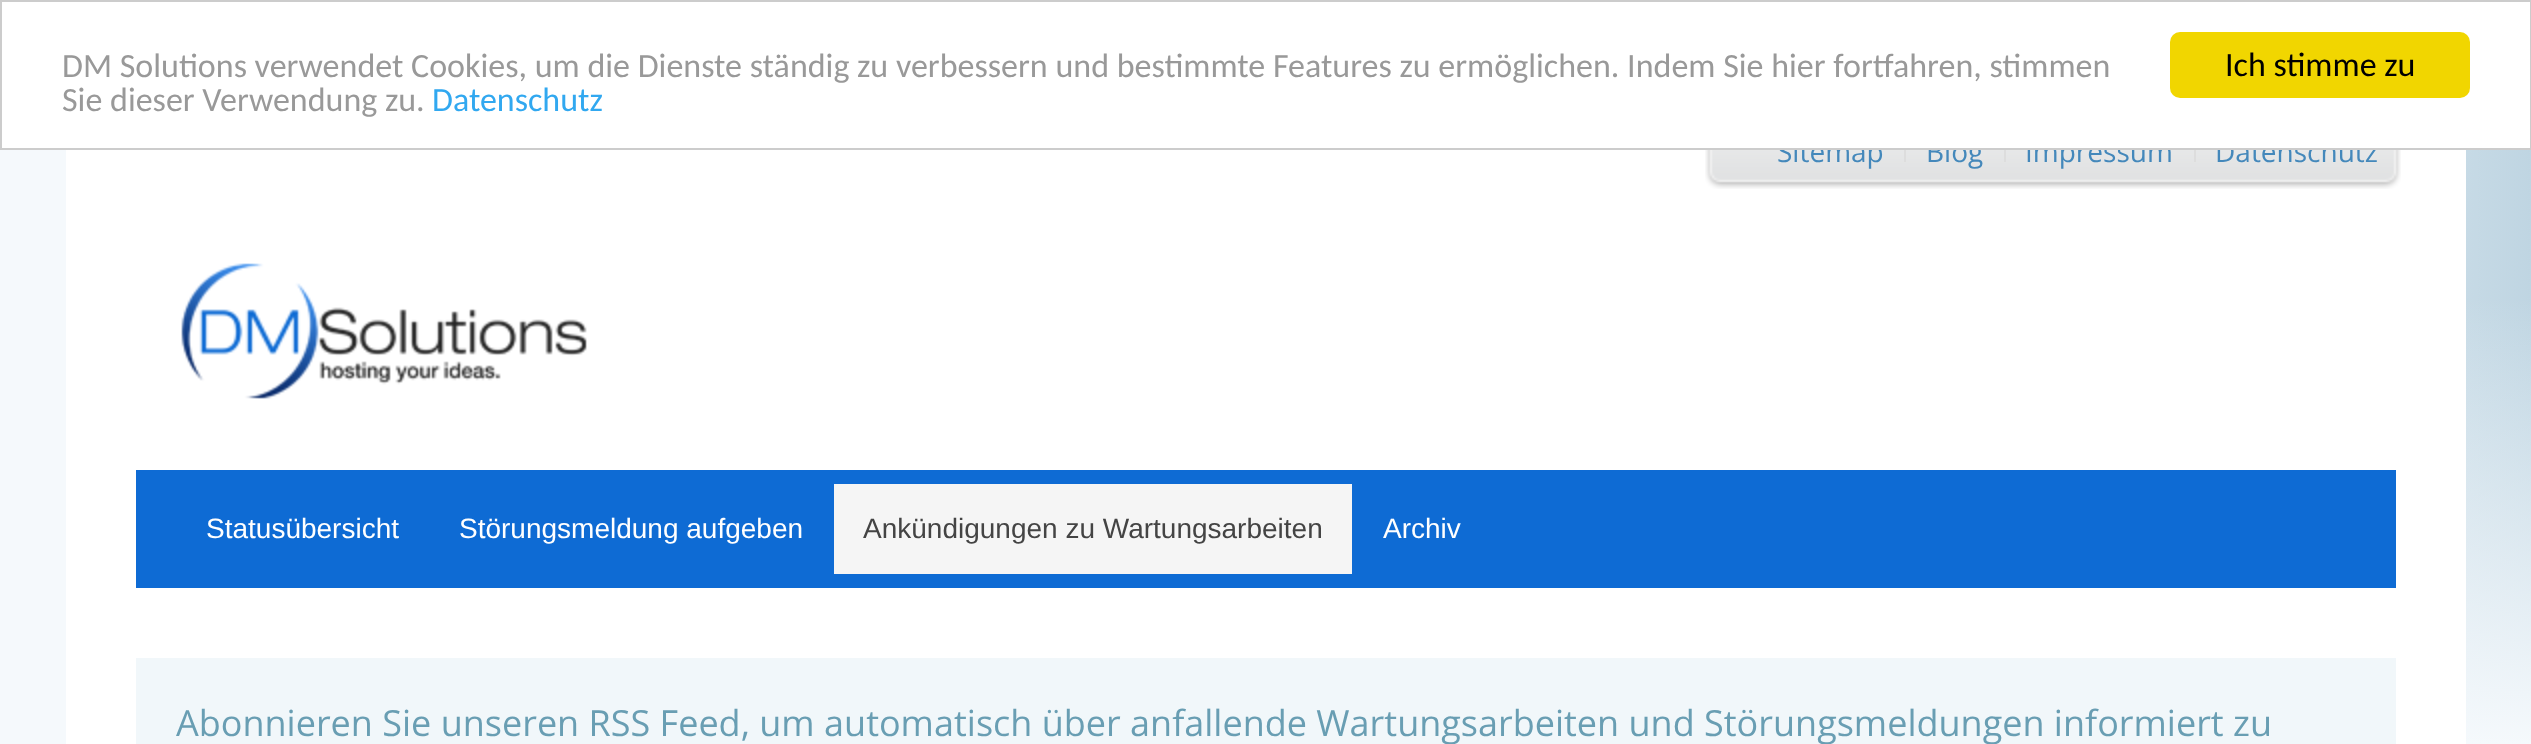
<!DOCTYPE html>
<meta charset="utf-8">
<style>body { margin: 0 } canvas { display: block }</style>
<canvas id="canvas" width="2531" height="744"></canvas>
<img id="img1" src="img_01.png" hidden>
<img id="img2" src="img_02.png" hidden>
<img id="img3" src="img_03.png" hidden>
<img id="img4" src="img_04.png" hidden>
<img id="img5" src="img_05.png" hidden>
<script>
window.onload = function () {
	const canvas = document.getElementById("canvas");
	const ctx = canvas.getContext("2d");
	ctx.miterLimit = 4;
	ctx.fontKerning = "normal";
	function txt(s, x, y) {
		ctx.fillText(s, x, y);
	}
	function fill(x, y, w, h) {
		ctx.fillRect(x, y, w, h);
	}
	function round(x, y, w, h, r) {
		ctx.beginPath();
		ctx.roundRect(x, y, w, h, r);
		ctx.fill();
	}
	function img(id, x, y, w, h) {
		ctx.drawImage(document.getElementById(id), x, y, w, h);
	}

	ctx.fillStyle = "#FFFFFF";
	fill(0, 0, 2531, 744);
	img("img1", 0, 150, 2531, 594);
	fill(66, 150, 2400, 594);
	img("img2", 1705, 150, 23, 39);
	img("img3", 1728, 150, 650, 39);
	ctx.fillStyle = "#DDDDDD";
	fill(1904, 142, 2, 20);
	fill(2004, 142, 2, 20);
	fill(2194, 142, 2, 20);
	img("img4", 2378, 150, 23, 39);
	img("img5", 181, 263, 406, 136);
	ctx.fillStyle = "#0E6BD4";
	fill(136, 470, 2260, 118);
	ctx.fillStyle = "#F5F5F5";
	fill(834, 484, 518, 90);
	ctx.fillStyle = "#F1F7FA";
	fill(136, 658, 2260, 86);
	ctx.font = "28px Open Sans";
	ctx.fillStyle = "#4488BB";
	txt("Sitemap", 1777, 162);
	txt("Blog", 1926, 162);
	txt("Impressum", 2025, 162);
	txt("Datenschutz", 2215, 162);
	ctx.fillStyle = "#FFFFFF";
	fill(1778, 140, 599, 8);
	ctx.strokeStyle = "#CCCCCC";
	ctx.lineWidth = 2;
	ctx.strokeRect(1, 1, 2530, 148);
	ctx.font = "34px Carlito";
	ctx.fillStyle = "#31A8F0";
	txt("Datenschutz", 432, 111);
	ctx.fillStyle = "#999999";
	txt("Sie dieser Verwendung zu.", 62, 111);
	txt("DM Solutions verwendet Cookies, um die Dienste ständig zu verbessern und bestimmte Features zu ermöglichen. Indem Sie hier fortfahren, stimmen", 62, 77);
	ctx.fillStyle = "#F1D600";
	round(2170, 32, 300, 66, 10);
	ctx.fillStyle = "#000000";
	txt("Ich stimme zu", 2225, 76);
	ctx.font = "28px Liberation Sans";
	ctx.fillStyle = "#FFFFFF";
	txt("Statusübersicht", 206, 538);
	txt("Störungsmeldung aufgeben", 459, 538);
	ctx.fillStyle = "#444444";
	txt("Ankündigungen zu Wartungsarbeiten", 863, 538);
	ctx.fillStyle = "#FFFFFF";
	txt("Archiv", 1383, 538);
	ctx.font = "36px Open Sans";
	ctx.fillStyle = "#699EB3";
	txt("Abonnieren Sie unseren RSS Feed, um automatisch über anfallende Wartungsarbeiten und Störungsmeldungen informiert zu", 176, 736);
};
</script>
